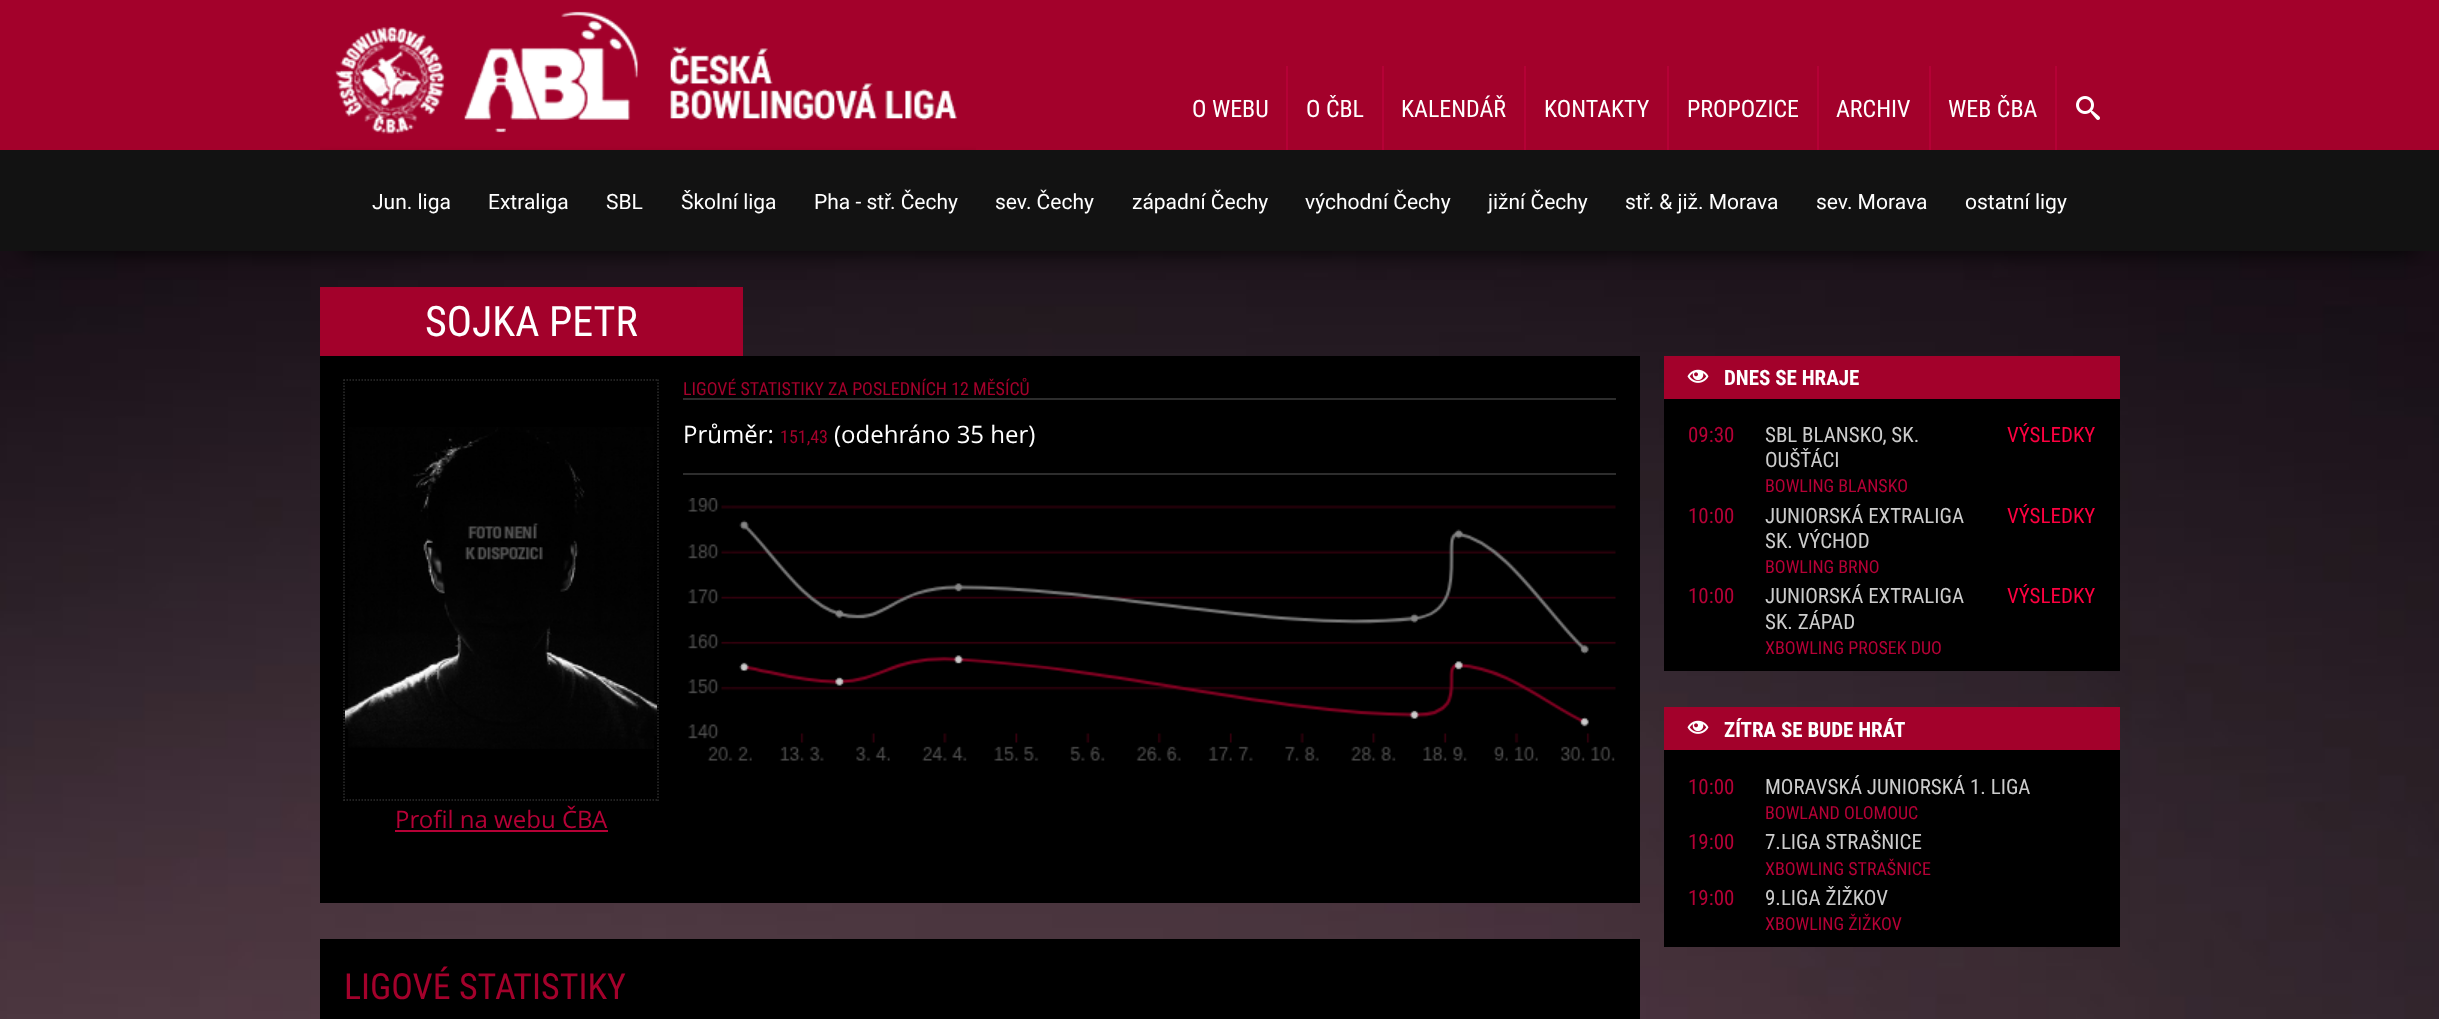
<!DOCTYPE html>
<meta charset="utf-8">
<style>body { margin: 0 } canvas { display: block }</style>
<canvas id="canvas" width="2439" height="1019"></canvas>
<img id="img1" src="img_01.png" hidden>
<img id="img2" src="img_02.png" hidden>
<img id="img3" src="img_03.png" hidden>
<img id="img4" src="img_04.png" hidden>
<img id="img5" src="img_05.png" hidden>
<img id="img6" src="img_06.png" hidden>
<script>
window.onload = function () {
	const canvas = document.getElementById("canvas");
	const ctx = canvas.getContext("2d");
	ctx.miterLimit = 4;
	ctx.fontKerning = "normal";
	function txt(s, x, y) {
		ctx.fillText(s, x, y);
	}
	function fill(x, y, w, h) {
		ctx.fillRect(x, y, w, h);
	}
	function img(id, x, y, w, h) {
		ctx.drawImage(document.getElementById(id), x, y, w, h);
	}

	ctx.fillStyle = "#A3012B";
	fill(0, 0, 2439, 1019);
	img("img1", 320, 11, 656, 139);
	ctx.fillStyle = "#B50136";
	fill(1286, 66, 2, 84);
	fill(1382, 66, 2, 84);
	fill(1524, 66, 2, 84);
	fill(1667, 66, 2, 84);
	fill(1817, 66, 2, 84);
	fill(1929, 66, 2, 84);
	fill(2055, 66, 2, 84);
	img("img2", 2076, 96, 24, 24);
	img("img3", 0, 251, 2439, 768);
	ctx.fillStyle = "#A3012B";
	fill(320, 287, 423, 69);
	ctx.fillStyle = "rgba(0, 0, 0, 0.9)";
	ctx.filter = "blur(12px)";
	ctx.beginPath();
	ctx.rect(24, 198, 2391, 53);
	ctx.fill();
	ctx.filter = "none";
	ctx.fillStyle = "#121212";
	fill(0, 150, 2439, 101);
	ctx.fillStyle = "#000000";
	fill(320, 356, 1320, 547);
	ctx.fillStyle = "#2D2D2D";
	fill(683, 398, 933, 2);
	fill(683, 473, 933, 2);
	img("img4", 688, 498, 928, 263);
	ctx.beginPath();
	ctx.moveTo(343.5, 380);
	ctx.lineTo(658.5, 380);
	ctx.strokeStyle = "#2D2D2D";
	ctx.lineWidth = 1.5;
	ctx.setLineDash([1.5, 1.5]);
	ctx.stroke();
	ctx.beginPath();
	ctx.moveTo(658, 379.5);
	ctx.lineTo(658, 801);
	ctx.stroke();
	ctx.beginPath();
	ctx.moveTo(343.5, 800);
	ctx.lineTo(658.5, 800);
	ctx.stroke();
	ctx.beginPath();
	ctx.moveTo(344, 379.5);
	ctx.lineTo(344, 801);
	ctx.stroke();
	img("img5", 345, 427, 312, 322);
	ctx.fillStyle = "#B50136";
	fill(395, 830, 213, 2);
	ctx.fillStyle = "#000000";
	fill(320, 939, 1320, 80);
	fill(1664, 399, 456, 272);
	ctx.fillStyle = "#A3012B";
	fill(1664, 356, 456, 43);
	img("img6", 1687, 369, 22, 14);
	ctx.fillStyle = "#000000";
	fill(1664, 750, 456, 197);
	ctx.fillStyle = "#A3012B";
	fill(1664, 707, 456, 43);
	img("img6", 1687, 720, 22, 14);
	ctx.font = "24px Roboto Condensed";
	ctx.fillStyle = "#FFFFFF";
	txt("O WEBU", 1192, 117);
	txt("O ČBL", 1306, 117);
	txt("KALENDÁŘ", 1401, 117);
	txt("KONTAKTY", 1544, 117);
	txt("PROPOZICE", 1687, 117);
	txt("ARCHIV", 1836, 117);
	txt("WEB ČBA", 1948, 117);
	ctx.font = "21px Roboto";
	txt("Jun. liga", 372, 209);
	txt("Extraliga", 488, 209);
	txt("SBL", 606, 209);
	txt("Školní liga", 681, 209);
	txt("Pha - stř. Čechy", 814, 209);
	txt("sev. Čechy", 995, 209);
	txt("západní Čechy", 1132, 209);
	txt("východní Čechy", 1305, 209);
	txt("jižní Čechy", 1488, 209);
	txt("stř. & již. Morava", 1625, 209);
	txt("sev. Morava", 1816, 209);
	txt("ostatní ligy", 1965, 209);
	ctx.font = "42px Roboto Condensed";
	txt("SOJKA PETR", 425, 336);
	ctx.font = "18px Roboto Condensed";
	ctx.fillStyle = "#A3012B";
	txt("LIGOVÉ STATISTIKY ZA POSLEDNÍCH 12 MĚSÍCŮ", 683, 395);
	ctx.font = "24px Open Sans";
	ctx.fillStyle = "#FFFFFF";
	txt("Průměr:", 683, 443);
	ctx.font = "18px Roboto Condensed";
	ctx.fillStyle = "#A3012B";
	txt("151,43", 780, 443);
	ctx.font = "24px Open Sans";
	ctx.fillStyle = "#FFFFFF";
	txt("(odehráno 35 her)", 834, 443);
	ctx.fillStyle = "#B50136";
	txt("Profil na webu ČBA", 395, 828);
	ctx.font = "36px Roboto Condensed";
	ctx.fillStyle = "#A3012B";
	txt("LIGOVÉ STATISTIKY", 344, 999);
	ctx.font = "bold 21px Roboto Condensed";
	ctx.fillStyle = "#FFFFFF";
	txt("DNES SE HRAJE", 1724, 385);
	ctx.font = "21px Roboto Condensed";
	ctx.fillStyle = "#B50136";
	txt("09:30", 1688, 442);
	ctx.fillStyle = "#CCCCCC";
	txt("SBL BLANSKO, SK.", 1765, 442);
	txt("OUŠŤÁCI", 1765, 467);
	ctx.font = "18px Roboto Condensed";
	ctx.fillStyle = "#B50136";
	txt("BOWLING BLANSKO", 1765, 492);
	ctx.font = "21px Roboto Condensed";
	ctx.fillStyle = "#FE0140";
	txt("VÝSLEDKY", 2007, 442);
	ctx.fillStyle = "#B50136";
	txt("10:00", 1688, 523);
	ctx.fillStyle = "#CCCCCC";
	txt("JUNIORSKÁ EXTRALIGA", 1765, 523);
	txt("SK. VÝCHOD", 1765, 548);
	ctx.font = "18px Roboto Condensed";
	ctx.fillStyle = "#B50136";
	txt("BOWLING BRNO", 1765, 573);
	ctx.font = "21px Roboto Condensed";
	ctx.fillStyle = "#FE0140";
	txt("VÝSLEDKY", 2007, 523);
	ctx.fillStyle = "#B50136";
	txt("10:00", 1688, 603);
	ctx.fillStyle = "#CCCCCC";
	txt("JUNIORSKÁ EXTRALIGA", 1765, 603);
	txt("SK. ZÁPAD", 1765, 629);
	ctx.font = "18px Roboto Condensed";
	ctx.fillStyle = "#B50136";
	txt("XBOWLING PROSEK DUO", 1765, 654);
	ctx.font = "21px Roboto Condensed";
	ctx.fillStyle = "#FE0140";
	txt("VÝSLEDKY", 2007, 603);
	ctx.font = "bold 21px Roboto Condensed";
	ctx.fillStyle = "#FFFFFF";
	txt("ZÍTRA SE BUDE HRÁT", 1724, 737);
	ctx.font = "21px Roboto Condensed";
	ctx.fillStyle = "#B50136";
	txt("10:00", 1688, 794);
	ctx.fillStyle = "#CCCCCC";
	txt("MORAVSKÁ JUNIORSKÁ 1. LIGA", 1765, 794);
	ctx.font = "18px Roboto Condensed";
	ctx.fillStyle = "#B50136";
	txt("BOWLAND OLOMOUC", 1765, 819);
	ctx.font = "21px Roboto Condensed";
	txt("19:00", 1688, 849);
	ctx.fillStyle = "#CCCCCC";
	txt("7.LIGA STRAŠNICE", 1765, 849);
	ctx.font = "18px Roboto Condensed";
	ctx.fillStyle = "#B50136";
	txt("XBOWLING STRAŠNICE", 1765, 875);
	ctx.font = "21px Roboto Condensed";
	txt("19:00", 1688, 905);
	ctx.fillStyle = "#CCCCCC";
	txt("9.LIGA ŽIŽKOV", 1765, 905);
	ctx.font = "18px Roboto Condensed";
	ctx.fillStyle = "#B50136";
	txt("XBOWLING ŽIŽKOV", 1765, 930);
};
</script>
